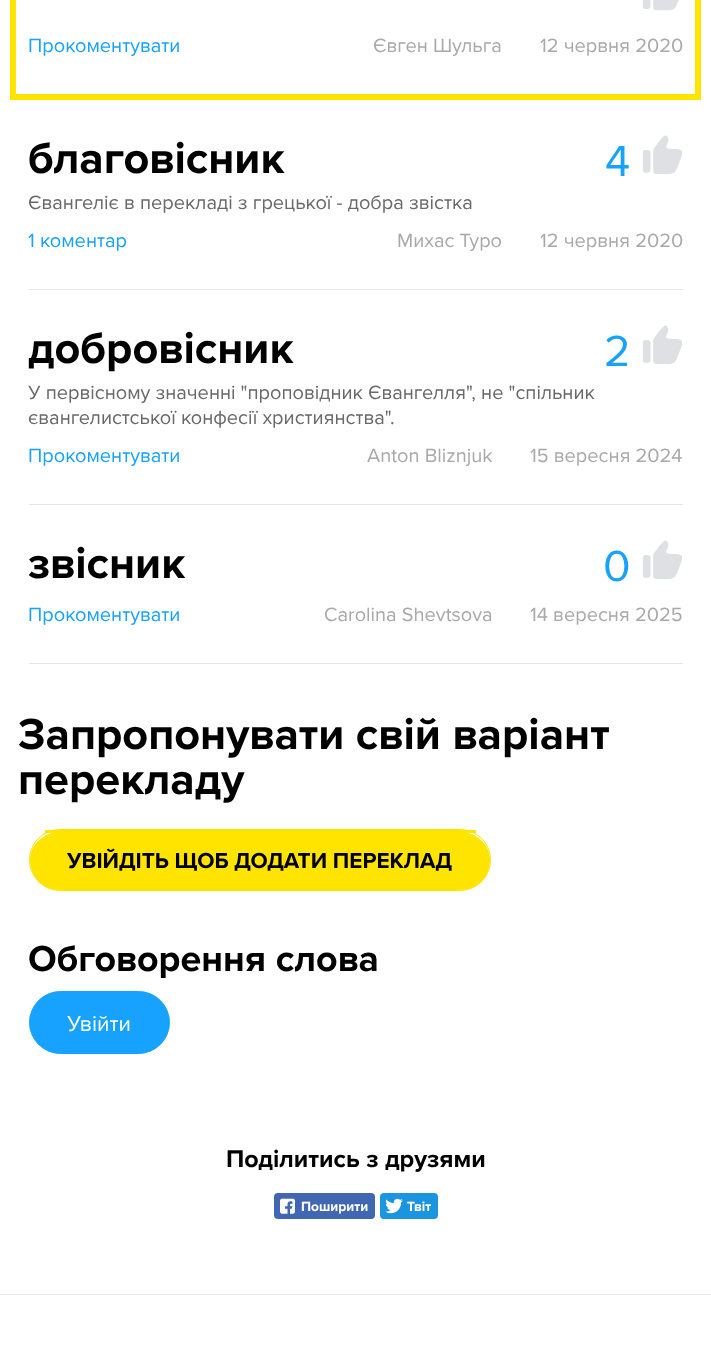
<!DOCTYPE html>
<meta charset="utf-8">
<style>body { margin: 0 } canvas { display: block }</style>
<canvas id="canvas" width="711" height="1361"></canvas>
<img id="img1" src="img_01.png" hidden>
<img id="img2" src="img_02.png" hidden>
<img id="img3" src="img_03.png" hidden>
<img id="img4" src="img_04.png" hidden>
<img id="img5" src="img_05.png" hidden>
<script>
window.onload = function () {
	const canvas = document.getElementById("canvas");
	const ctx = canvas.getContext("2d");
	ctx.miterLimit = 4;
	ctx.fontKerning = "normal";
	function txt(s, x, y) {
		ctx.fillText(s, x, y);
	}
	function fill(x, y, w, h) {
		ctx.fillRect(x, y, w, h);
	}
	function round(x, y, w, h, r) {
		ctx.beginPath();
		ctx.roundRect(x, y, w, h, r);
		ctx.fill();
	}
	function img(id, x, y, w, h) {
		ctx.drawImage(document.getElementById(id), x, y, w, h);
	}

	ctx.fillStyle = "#FFFFFF";
	fill(0, 0, 711, 1361);
	ctx.strokeStyle = "#FFE400";
	ctx.lineWidth = 6;
	ctx.strokeRect(13, -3, 685, 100);
	img("img1", 642, 0, 37, 11);
	ctx.fillStyle = "#E6E6E6";
	fill(29, 289, 654, 1);
	img("img2", 642, 135, 40, 39);
	fill(29, 504, 654, 1);
	img("img3", 642, 325, 40, 39);
	fill(29, 663, 654, 1);
	img("img3", 642, 540, 40, 39);
	ctx.fillStyle = "#FFE400";
	ctx.beginPath();
	ctx.moveTo(60, 832);
	ctx.lineTo(460, 832);
	ctx.bezierCurveTo(477, 832, 490, 845, 490, 860);
	ctx.bezierCurveTo(490, 877, 477, 890, 460, 890);
	ctx.lineTo(60, 890);
	ctx.bezierCurveTo(43, 890, 30, 877, 30, 860);
	ctx.bezierCurveTo(30, 845, 43, 832, 60, 832);
	ctx.closePath();
	ctx.fill();
	ctx.beginPath();
	ctx.roundRect(29.5, 829.5, 461, 61, 30.5);
	ctx.lineWidth = 1;
	ctx.stroke();
	fill(45, 830, 431, 3);
	ctx.fillStyle = "#17A2FF";
	ctx.beginPath();
	ctx.roundRect(29.5, 991.5, 140, 62, 31);
	ctx.fill();
	ctx.strokeStyle = "#17A2FF";
	ctx.stroke();
	ctx.fillStyle = "#4267B2";
	round(274, 1193, 101, 26, 4);
	img("img4", 280, 1198, 15, 16);
	ctx.fillStyle = "#1B95E0";
	round(380, 1193, 58, 26, 4);
	img("img5", 385, 1198, 18, 16);
	ctx.fillStyle = "#E6E6E6";
	fill(0, 1294, 711, 1);
	ctx.font = "20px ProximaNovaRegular";
	ctx.fillStyle = "#17A2FF";
	txt("Прокоментувати", 28, 52);
	ctx.fillStyle = "#A9A9A9";
	txt("Євген Шульга", 373, 52);
	txt("12 червня 2020", 540, 52);
	ctx.font = "bold 45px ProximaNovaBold";
	ctx.fillStyle = "#000000";
	txt("благовісник", 28, 173);
	ctx.font = "45px ProximaNovaRegular";
	ctx.fillStyle = "#17A2FF";
	txt("4", 605, 176);
	ctx.font = "20px ProximaNovaRegular";
	ctx.fillStyle = "#696969";
	txt("Євангеліє в перекладі з грецької - добра звістка", 28, 209);
	ctx.fillStyle = "#17A2FF";
	txt("1 коментар", 28, 247);
	ctx.fillStyle = "#A9A9A9";
	txt("Михас Туро", 397, 247);
	txt("12 червня 2020", 540, 247);
	ctx.font = "bold 45px ProximaNovaBold";
	ctx.fillStyle = "#000000";
	txt("добровісник", 28, 363);
	ctx.font = "45px ProximaNovaRegular";
	ctx.fillStyle = "#17A2FF";
	txt("2", 604, 366);
	ctx.font = "20px ProximaNovaRegular";
	ctx.fillStyle = "#696969";
	txt("У первісному значенні \"проповідник Євангелля\", не \"спільник", 28, 399);
	txt("євангелистської конфесії християнства\".", 28, 424);
	ctx.fillStyle = "#17A2FF";
	txt("Прокоментувати", 28, 462);
	ctx.fillStyle = "#A9A9A9";
	txt("Anton Bliznjuk", 367, 462);
	txt("15 вересня 2024", 530, 462);
	ctx.font = "bold 45px ProximaNovaBold";
	ctx.fillStyle = "#000000";
	txt("звісник", 28, 578);
	ctx.font = "45px ProximaNovaRegular";
	ctx.fillStyle = "#17A2FF";
	txt("0", 603, 581);
	ctx.font = "20px ProximaNovaRegular";
	txt("Прокоментувати", 28, 621);
	ctx.fillStyle = "#A9A9A9";
	txt("Carolina Shevtsova", 324, 621);
	txt("14 вересня 2025", 530, 621);
	ctx.font = "bold 45px ProximaNovaBold";
	ctx.fillStyle = "#000000";
	txt("Запропонувати свій варіант", 18, 749);
	txt("перекладу", 18, 794);
	ctx.font = "bold 22.5px ProximaNovaBold";
	txt("УВІЙДІТЬ ЩОБ ДОДАТИ ПЕРЕКЛАД", 67, 868);
	ctx.font = "bold 37.5px ProximaNovaBold";
	txt("Обговорення слова", 28, 971);
	ctx.font = "22.5px ProximaNovaRegular";
	ctx.fillStyle = "#FFFFFF";
	txt("Увійти", 67, 1031);
	ctx.font = "bold 25px ProximaNovaBold";
	ctx.fillStyle = "#000000";
	txt("Поділитись з друзями", 226, 1167);
	ctx.font = "bold 13.75px ProximaNovaBold";
	ctx.fillStyle = "#FFFFFF";
	txt("Поширити", 301, 1211);
	txt("Твіт", 407, 1211);
};
</script>
